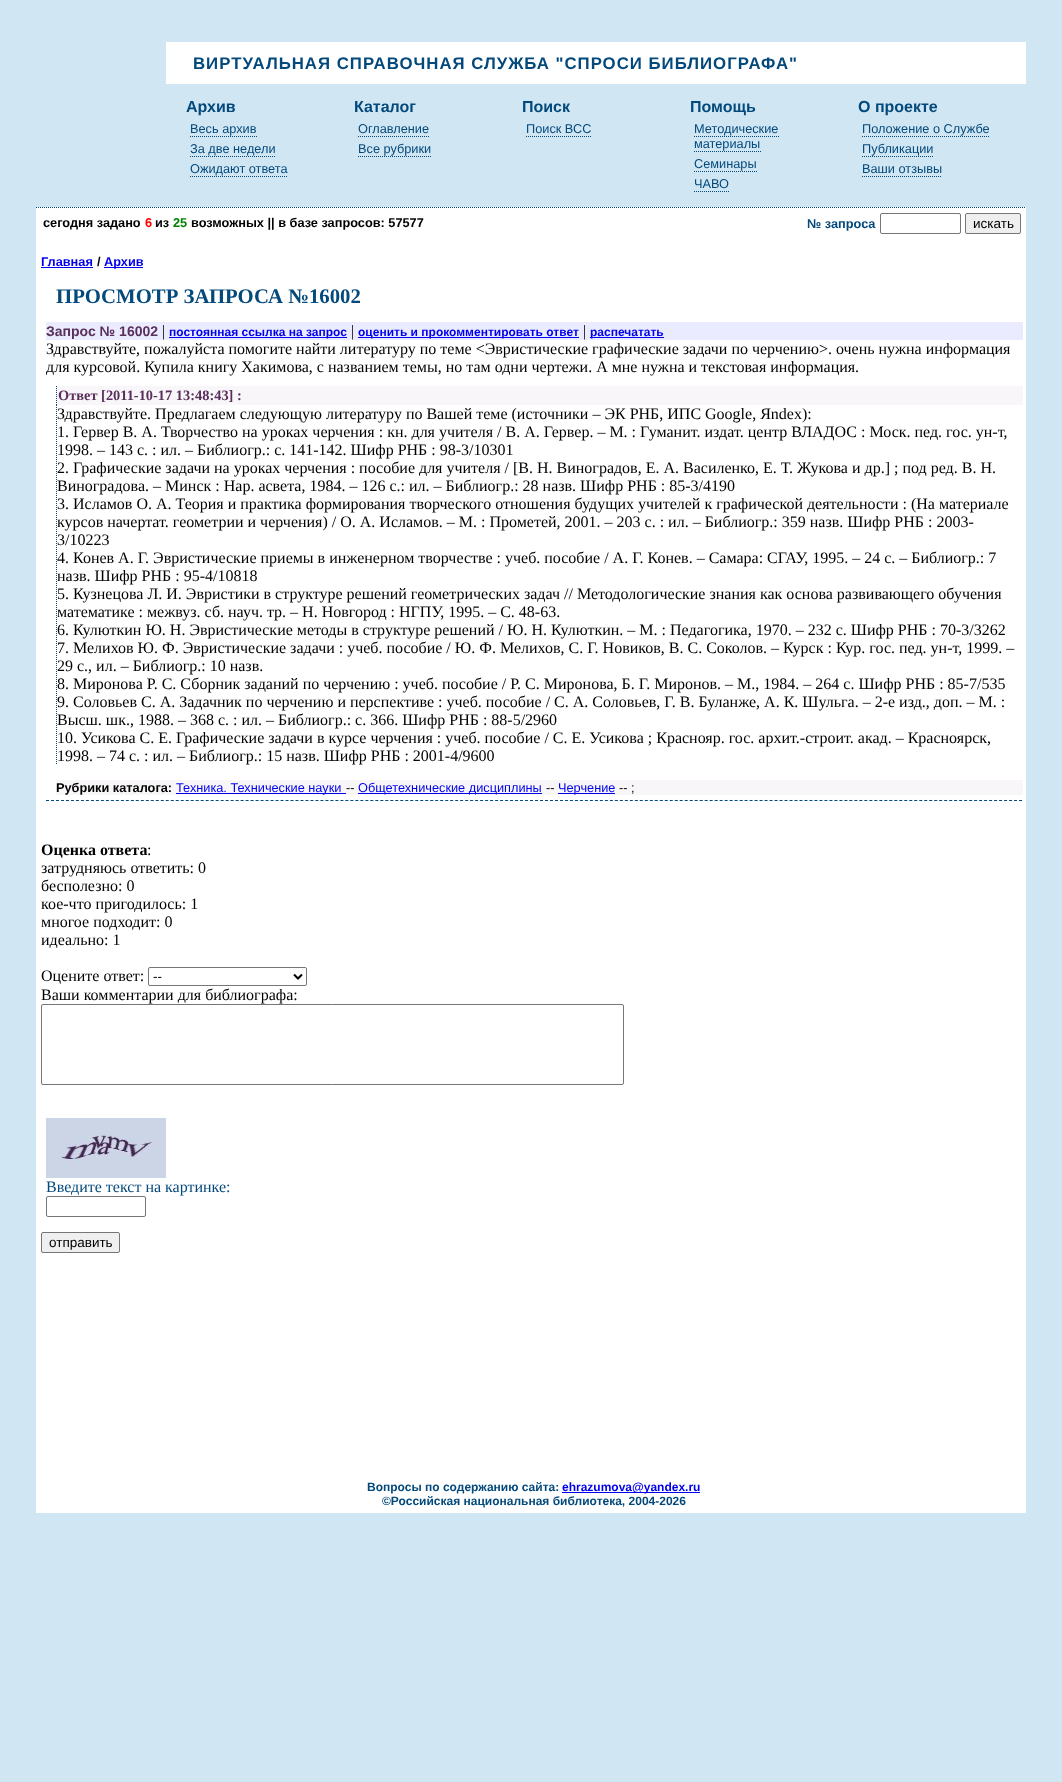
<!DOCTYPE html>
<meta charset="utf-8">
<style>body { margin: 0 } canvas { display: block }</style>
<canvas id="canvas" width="1062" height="1782"></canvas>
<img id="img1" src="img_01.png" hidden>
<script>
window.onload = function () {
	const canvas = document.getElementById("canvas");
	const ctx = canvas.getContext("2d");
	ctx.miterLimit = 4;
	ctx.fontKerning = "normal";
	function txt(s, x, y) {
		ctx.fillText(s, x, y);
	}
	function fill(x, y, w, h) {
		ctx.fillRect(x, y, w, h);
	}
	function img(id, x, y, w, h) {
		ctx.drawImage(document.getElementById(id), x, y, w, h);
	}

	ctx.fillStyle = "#D1E6F3";
	fill(0, 0, 1062, 1782);
	ctx.fillStyle = "#FFFFFF";
	fill(166, 42, 860, 42);
	ctx.beginPath();
	ctx.moveTo(190, 136.5);
	ctx.lineTo(257, 136.5);
	ctx.strokeStyle = "#03497B";
	ctx.setLineDash([1, 1]);
	ctx.stroke();
	ctx.beginPath();
	ctx.moveTo(190, 156.5);
	ctx.lineTo(276, 156.5);
	ctx.stroke();
	ctx.beginPath();
	ctx.moveTo(190, 176.5);
	ctx.lineTo(288, 176.5);
	ctx.stroke();
	ctx.beginPath();
	ctx.moveTo(358, 136.5);
	ctx.lineTo(429, 136.5);
	ctx.stroke();
	ctx.beginPath();
	ctx.moveTo(358, 156.5);
	ctx.lineTo(431, 156.5);
	ctx.stroke();
	ctx.beginPath();
	ctx.moveTo(526, 136.5);
	ctx.lineTo(592, 136.5);
	ctx.stroke();
	ctx.beginPath();
	ctx.moveTo(694, 136.5);
	ctx.lineTo(779, 136.5);
	ctx.stroke();
	ctx.beginPath();
	ctx.moveTo(694, 151.5);
	ctx.lineTo(761, 151.5);
	ctx.stroke();
	ctx.beginPath();
	ctx.moveTo(694, 171.5);
	ctx.lineTo(757, 171.5);
	ctx.stroke();
	ctx.beginPath();
	ctx.moveTo(694, 191.5);
	ctx.lineTo(729, 191.5);
	ctx.stroke();
	ctx.beginPath();
	ctx.moveTo(862, 136.5);
	ctx.lineTo(990, 136.5);
	ctx.stroke();
	ctx.beginPath();
	ctx.moveTo(862, 156.5);
	ctx.lineTo(934, 156.5);
	ctx.stroke();
	ctx.beginPath();
	ctx.moveTo(862, 176.5);
	ctx.lineTo(942, 176.5);
	ctx.stroke();
	fill(36, 207, 990, 1306);
	ctx.beginPath();
	ctx.moveTo(36, 207.5);
	ctx.lineTo(1026, 207.5);
	ctx.stroke();
	ctx.beginPath();
	ctx.roundRect(880.5, 213.5, 80, 20, 1.5);
	ctx.strokeStyle = "#767676";
	ctx.setLineDash([]);
	ctx.stroke();
	ctx.fillStyle = "#EFEFEF";
	ctx.beginPath();
	ctx.roundRect(965.5, 213.5, 55, 20, 1.5);
	ctx.fill();
	ctx.stroke();
	ctx.fillStyle = "#0000EE";
	fill(41, 267, 52, 1);
	fill(104, 267, 39, 1);
	ctx.beginPath();
	ctx.moveTo(46, 800.5);
	ctx.lineTo(1023, 800.5);
	ctx.strokeStyle = "#03497B";
	ctx.setLineDash([3, 1.99]);
	ctx.stroke();
	ctx.fillStyle = "#EBEBFF";
	fill(46, 322, 977, 18);
	ctx.fillStyle = "#0000EE";
	fill(169, 337, 178, 1);
	fill(358, 337, 221, 1);
	fill(590, 337, 74, 1);
	ctx.fillStyle = "#F8F6F8";
	fill(56, 386, 967, 19);
	ctx.beginPath();
	ctx.moveTo(56.5, 386);
	ctx.lineTo(56.5, 405);
	ctx.setLineDash([1, 1]);
	ctx.stroke();
	ctx.beginPath();
	ctx.moveTo(56.5, 405);
	ctx.lineTo(56.5, 765);
	ctx.stroke();
	fill(56, 780, 967, 15);
	ctx.fillStyle = "#0000EE";
	fill(176, 793, 170, 1);
	fill(358, 793, 184, 1);
	fill(558, 793, 57, 1);
	ctx.beginPath();
	ctx.roundRect(148.5, 967.5, 158, 18, 1.5);
	ctx.strokeStyle = "#767676";
	ctx.setLineDash([]);
	ctx.stroke();
	ctx.beginPath();
	ctx.moveTo(294, 974.5);
	ctx.lineTo(298, 978.5);
	ctx.lineTo(302, 974.5);
	ctx.strokeStyle = "#000000";
	ctx.lineWidth = 2;
	ctx.stroke();
	ctx.beginPath();
	ctx.roundRect(41.5, 1004.5, 582, 80, 1.5);
	ctx.strokeStyle = "#767676";
	ctx.lineWidth = 1;
	ctx.stroke();
	img("img1", 46, 1118, 120, 60);
	ctx.beginPath();
	ctx.roundRect(46.5, 1196.5, 99, 20, 1.5);
	ctx.stroke();
	ctx.fillStyle = "#EFEFEF";
	ctx.beginPath();
	ctx.roundRect(41.5, 1232.5, 78, 20, 1.5);
	ctx.fill();
	ctx.stroke();
	ctx.fillStyle = "#0000EE";
	fill(562, 1492, 138, 1);
	ctx.letterSpacing = "1px";
	ctx.font = "bold 16.8px Liberation Sans";
	ctx.fillStyle = "#03497B";
	txt("ВИРТУАЛЬНАЯ СПРАВОЧНАЯ СЛУЖБА \"СПРОСИ БИБЛИОГРАФА\"", 193, 69);
	ctx.letterSpacing = "0px";
	ctx.font = "bold 16px Liberation Sans";
	txt("Архив", 186, 112);
	txt("Каталог", 354, 112);
	txt("Поиск", 522, 112);
	txt("Помощь", 690, 112);
	txt("О проекте", 858, 112);
	ctx.font = "12.75px Liberation Sans";
	txt("Весь архив", 190, 133);
	txt("За две недели", 190, 153);
	txt("Ожидают ответа", 190, 173);
	txt("Оглавление", 358, 133);
	txt("Все рубрики", 358, 153);
	txt("Поиск ВСС", 526, 133);
	txt("Методические", 694, 133);
	txt("материалы", 694, 148);
	txt("Cеминары", 694, 168);
	txt("ЧАВО", 694, 188);
	txt("Положение о Службе", 862, 133);
	txt("Публикации", 862, 153);
	txt("Ваши отзывы", 862, 173);
	ctx.font = "bold 12.75px Liberation Sans";
	ctx.fillStyle = "#000000";
	txt("сегодня задано", 43, 227);
	ctx.fillStyle = "#FF0000";
	txt("6", 145, 227);
	ctx.fillStyle = "#000000";
	txt("из", 155, 227);
	ctx.fillStyle = "#008000";
	txt("25", 173, 227);
	ctx.fillStyle = "#000000";
	txt("возможных || в базе запросов: 57577", 191, 227);
	ctx.fillStyle = "#03497B";
	txt("№ запроса", 807, 228);
	ctx.font = "13.5px Liberation Sans";
	ctx.fillStyle = "#000000";
	txt("искать", 973, 228);
	ctx.font = "bold 12.75px Liberation Sans";
	ctx.fillStyle = "#0000EE";
	txt("Главная", 41, 266);
	ctx.fillStyle = "#000000";
	txt("/", 97, 266);
	ctx.fillStyle = "#0000EE";
	txt("Архив", 104, 266);
	ctx.font = "bold 20.75px Liberation Serif";
	ctx.fillStyle = "#03497B";
	txt("ПРОСМОТР ЗАПРОСА №16002", 56, 303);
	ctx.font = "bold 14px Liberation Sans";
	ctx.fillStyle = "#592F5B";
	txt("Запрос № 16002", 46, 336);
	ctx.font = "16px Liberation Serif";
	ctx.fillStyle = "#000000";
	txt("|", 162, 336);
	ctx.font = "bold 12px Liberation Sans";
	ctx.fillStyle = "#0000EE";
	txt("постоянная ссылка на запрос", 169, 336);
	ctx.font = "16px Liberation Serif";
	ctx.fillStyle = "#000000";
	txt("|", 351, 336);
	ctx.font = "bold 12px Liberation Sans";
	ctx.fillStyle = "#0000EE";
	txt("оценить и прокомментировать ответ", 358, 336);
	ctx.font = "16px Liberation Serif";
	ctx.fillStyle = "#000000";
	txt("|", 583, 336);
	ctx.font = "bold 12px Liberation Sans";
	ctx.fillStyle = "#0000EE";
	txt("распечатать", 590, 336);
	ctx.font = "16px Liberation Serif";
	ctx.fillStyle = "#000000";
	txt("Здравствуйте, пожалуйста помогите найти литературу по теме <Эвристические графические задачи по черчению>. очень нужна информация", 46, 354);
	txt("для курсовой. Купила книгу Хакимова, с названием темы, но там одни чертежи. А мне нужна и текстовая информация.", 46, 372);
	ctx.font = "bold 14.4px Liberation Serif";
	ctx.fillStyle = "#592F5B";
	txt("Ответ [2011-10-17 13:48:43] :", 58, 400);
	ctx.font = "16px Liberation Serif";
	ctx.fillStyle = "#000000";
	txt("Здравствуйте. Предлагаем следующую литературу по Вашей теме (источники – ЭК РНБ, ИПС Google, Яndex):", 57, 419);
	txt("1. Гервер В. А. Творчество на уроках черчения : кн. для учителя / В. А. Гервер. – М. : Гуманит. издат. центр ВЛАДОС : Моск. пед. гос. ун-т,", 57, 437);
	txt("1998. – 143 с. : ил. – Библиогр.: с. 141-142. Шифр РНБ : 98-3/10301", 57, 455);
	txt("2. Графические задачи на уроках черчения : пособие для учителя / [В. Н. Виноградов, Е. А. Василенко, Е. Т. Жукова и др.] ; под ред. В. Н.", 57, 473);
	txt("Виноградова. – Минск : Нар. асвета, 1984. – 126 с.: ил. – Библиогр.: 28 назв. Шифр РНБ : 85-3/4190", 57, 491);
	txt("3. Исламов О. А. Теория и практика формирования творческого отношения будущих учителей к графической деятельности : (На материале", 57, 509);
	txt("курсов начертат. геометрии и черчения) / О. А. Исламов. – М. : Прометей, 2001. – 203 с. : ил. – Библиогр.: 359 назв. Шифр РНБ : 2003-", 57, 527);
	txt("3/10223", 57, 545);
	txt("4. Конев А. Г. Эвристические приемы в инженерном творчестве : учеб. пособие / А. Г. Конев. – Самара: СГАУ, 1995. – 24 с. – Библиогр.: 7", 57, 563);
	txt("назв. Шифр РНБ : 95-4/10818", 57, 581);
	txt("5. Кузнецова Л. И. Эвристики в структуре решений геометрических задач // Методологические знания как основа развивающего обучения", 57, 599);
	txt("математике : межвуз. сб. науч. тр. – Н. Новгород : НГПУ, 1995. – С. 48-63.", 57, 617);
	txt("6. Кулюткин Ю. Н. Эвристические методы в структуре решений / Ю. Н. Кулюткин. – М. : Педагогика, 1970. – 232 с. Шифр РНБ : 70-3/3262", 57, 635);
	txt("7. Мелихов Ю. Ф. Эвристические задачи : учеб. пособие / Ю. Ф. Мелихов, С. Г. Новиков, В. С. Соколов. – Курск : Кур. гос. пед. ун-т, 1999. –", 57, 653);
	txt("29 с., ил. – Библиогр.: 10 назв.", 57, 671);
	txt("8. Миронова Р. С. Сборник заданий по черчению : учеб. пособие / Р. С. Миронова, Б. Г. Миронов. – М., 1984. – 264 с. Шифр РНБ : 85-7/535", 57, 689);
	txt("9. Соловьев С. А. Задачник по черчению и перспективе : учеб. пособие / С. А. Соловьев, Г. В. Буланже, А. К. Шульга. – 2-е изд., доп. – М. :", 57, 707);
	txt("Высш. шк., 1988. – 368 с. : ил. – Библиогр.: с. 366. Шифр РНБ : 88-5/2960", 57, 725);
	txt("10. Усикова С. Е. Графические задачи в курсе черчения : учеб. пособие / С. Е. Усикова ; Краснояр. гос. архит.-строит. акад. – Красноярск,", 57, 743);
	txt("1998. – 74 с. : ил. – Библиогр.: 15 назв. Шифр РНБ : 2001-4/9600", 57, 761);
	ctx.font = "bold 12.75px Liberation Sans";
	txt("Рубрики каталога:", 56, 792);
	ctx.font = "12.75px Liberation Sans";
	ctx.fillStyle = "#0000EE";
	txt("Техника. Технические науки", 176, 792);
	ctx.fillStyle = "#000000";
	txt("--", 346, 792);
	ctx.fillStyle = "#0000EE";
	txt("Общетехнические дисциплины", 358, 792);
	ctx.fillStyle = "#000000";
	txt("--", 546, 792);
	ctx.fillStyle = "#0000EE";
	txt("Черчение", 558, 792);
	ctx.fillStyle = "#000000";
	txt("-- ;", 619, 792);
	ctx.font = "bold 16px Liberation Serif";
	txt("Оценка ответа", 41, 855);
	ctx.font = "16px Liberation Serif";
	txt(":", 147, 855);
	txt("затрудняюсь ответить: 0", 41, 873);
	txt("бесполезно: 0", 41, 891);
	txt("кое-что пригодилось: 1", 41, 909);
	txt("многое подходит: 0", 41, 927);
	txt("идеально: 1", 41, 945);
	txt("Оцените ответ:", 41, 981);
	ctx.font = "13.5px Liberation Sans";
	txt("--", 153, 981);
	ctx.font = "16px Liberation Serif";
	txt("Ваши комментарии для библиографа:", 41, 1000);
	ctx.fillStyle = "#03497B";
	txt("Введите текст на картинке:", 46, 1192);
	ctx.font = "13.5px Liberation Sans";
	ctx.fillStyle = "#000000";
	txt("отправить", 49, 1247);
	ctx.font = "bold 12px Liberation Sans";
	ctx.fillStyle = "#03497B";
	txt("Вопросы по содержанию сайта:", 367, 1491);
	ctx.fillStyle = "#0000EE";
	txt("ehrazumova@yandex.ru", 562, 1491);
	ctx.fillStyle = "#03497B";
	txt("©Российская национальная библиотека, 2004-2026", 382, 1505);
};
</script>
